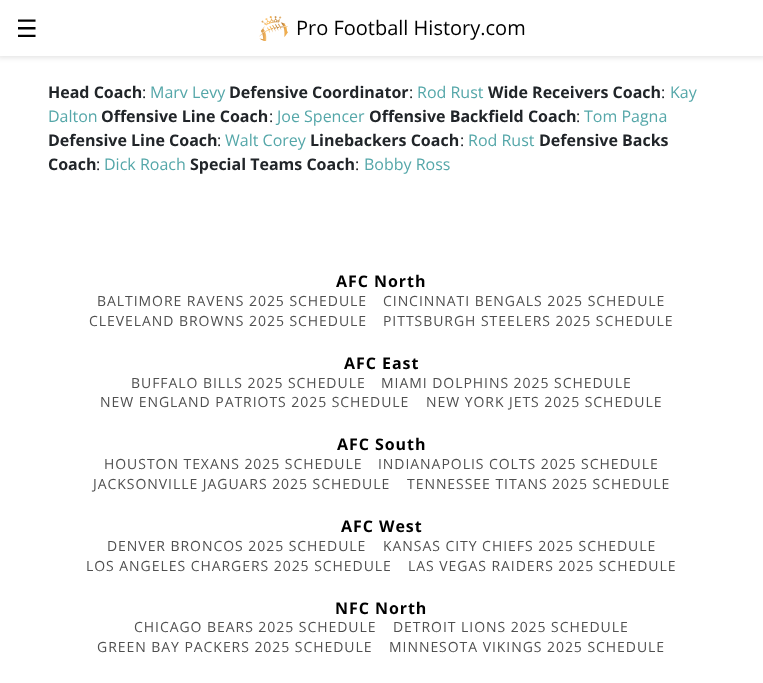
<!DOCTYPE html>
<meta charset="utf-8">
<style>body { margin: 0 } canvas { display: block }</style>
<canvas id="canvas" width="763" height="683"></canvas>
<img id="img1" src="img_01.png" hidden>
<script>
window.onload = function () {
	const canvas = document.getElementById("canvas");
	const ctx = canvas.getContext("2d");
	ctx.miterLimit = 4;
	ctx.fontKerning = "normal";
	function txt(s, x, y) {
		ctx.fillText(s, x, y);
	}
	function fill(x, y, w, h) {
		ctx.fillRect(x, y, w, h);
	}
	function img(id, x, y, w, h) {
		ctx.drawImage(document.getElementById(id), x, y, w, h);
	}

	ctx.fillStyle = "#FFFFFF";
	fill(0, 0, 763, 683);
	ctx.fillStyle = "rgba(0, 0, 0, 0.1)";
	ctx.filter = "blur(2.5px)";
	ctx.beginPath();
	ctx.rect(-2, -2, 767, 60);
	ctx.fill();
	ctx.filter = "none";
	ctx.fillStyle = "#FFFFFF";
	fill(0, 0, 763, 56);
	img("img1", 259, 16, 29, 25);
	ctx.font = "24px DejaVu Sans";
	ctx.fillStyle = "#000000";
	txt("☰", 16, 37);
	ctx.font = "20px Open Sans";
	txt("Pro Football History.com", 296, 35);
	ctx.font = "bold 16px Open Sans";
	ctx.fillStyle = "#212529";
	txt("Head Coach", 48, 98);
	ctx.font = "16px Open Sans";
	txt(":", 142, 98);
	ctx.fillStyle = "#55A7A9";
	txt("Marv Levy", 150, 98);
	ctx.font = "bold 16px Open Sans";
	ctx.fillStyle = "#212529";
	txt("Defensive Coordinator", 229, 98);
	ctx.font = "16px Open Sans";
	txt(":", 409, 98);
	ctx.fillStyle = "#55A7A9";
	txt("Rod Rust", 417, 98);
	ctx.font = "bold 16px Open Sans";
	ctx.fillStyle = "#212529";
	txt("Wide Receivers Coach", 488, 98);
	ctx.font = "16px Open Sans";
	txt(":", 661, 98);
	ctx.fillStyle = "#55A7A9";
	txt("Kay", 670, 98);
	txt("Dalton", 48, 122);
	ctx.font = "bold 16px Open Sans";
	ctx.fillStyle = "#212529";
	txt("Offensive Line Coach", 101, 122);
	ctx.font = "16px Open Sans";
	txt(":", 269, 122);
	ctx.fillStyle = "#55A7A9";
	txt("Joe Spencer", 277, 122);
	ctx.font = "bold 16px Open Sans";
	ctx.fillStyle = "#212529";
	txt("Offensive Backfield Coach", 369, 122);
	ctx.font = "16px Open Sans";
	txt(":", 576, 122);
	ctx.fillStyle = "#55A7A9";
	txt("Tom Pagna", 584, 122);
	ctx.font = "bold 16px Open Sans";
	ctx.fillStyle = "#212529";
	txt("Defensive Line Coach", 48, 146);
	ctx.font = "16px Open Sans";
	txt(":", 217, 146);
	ctx.fillStyle = "#55A7A9";
	txt("Walt Corey", 225, 146);
	ctx.font = "bold 16px Open Sans";
	ctx.fillStyle = "#212529";
	txt("Linebackers Coach", 310, 146);
	ctx.font = "16px Open Sans";
	txt(":", 460, 146);
	ctx.fillStyle = "#55A7A9";
	txt("Rod Rust", 468, 146);
	ctx.font = "bold 16px Open Sans";
	ctx.fillStyle = "#212529";
	txt("Defensive Backs", 539, 146);
	txt("Coach", 48, 170);
	ctx.font = "16px Open Sans";
	txt(":", 96, 170);
	ctx.fillStyle = "#55A7A9";
	txt("Dick Roach", 104, 170);
	ctx.font = "bold 16px Open Sans";
	ctx.fillStyle = "#212529";
	txt("Special Teams Coach", 190, 170);
	ctx.font = "16px Open Sans";
	txt(":", 355, 170);
	ctx.fillStyle = "#55A7A9";
	txt("Bobby Ross", 364, 170);
	ctx.letterSpacing = "0.95px";
	ctx.font = "bold 16px Open Sans";
	ctx.fillStyle = "#000000";
	txt("AFC North", 336, 287);
	ctx.font = "14px Open Sans";
	ctx.fillStyle = "#4F4F4F";
	txt("BALTIMORE RAVENS 2025 SCHEDULE", 97, 306);
	txt("CINCINNATI BENGALS 2025 SCHEDULE", 383, 306);
	txt("CLEVELAND BROWNS 2025 SCHEDULE", 89, 326);
	txt("PITTSBURGH STEELERS 2025 SCHEDULE", 383, 326);
	ctx.font = "bold 16px Open Sans";
	ctx.fillStyle = "#000000";
	txt("AFC East", 344, 369);
	ctx.font = "14px Open Sans";
	ctx.fillStyle = "#4F4F4F";
	txt("BUFFALO BILLS 2025 SCHEDULE", 131, 388);
	txt("MIAMI DOLPHINS 2025 SCHEDULE", 381, 388);
	txt("NEW ENGLAND PATRIOTS 2025 SCHEDULE", 100, 407);
	txt("NEW YORK JETS 2025 SCHEDULE", 426, 407);
	ctx.font = "bold 16px Open Sans";
	ctx.fillStyle = "#000000";
	txt("AFC South", 337, 450);
	ctx.font = "14px Open Sans";
	ctx.fillStyle = "#4F4F4F";
	txt("HOUSTON TEXANS 2025 SCHEDULE", 104, 469);
	txt("INDIANAPOLIS COLTS 2025 SCHEDULE", 378, 469);
	txt("JACKSONVILLE JAGUARS 2025 SCHEDULE", 93, 489);
	txt("TENNESSEE TITANS 2025 SCHEDULE", 407, 489);
	ctx.font = "bold 16px Open Sans";
	ctx.fillStyle = "#000000";
	txt("AFC West", 341, 532);
	ctx.font = "14px Open Sans";
	ctx.fillStyle = "#4F4F4F";
	txt("DENVER BRONCOS 2025 SCHEDULE", 107, 551);
	txt("KANSAS CITY CHIEFS 2025 SCHEDULE", 383, 551);
	txt("LOS ANGELES CHARGERS 2025 SCHEDULE", 86, 571);
	txt("LAS VEGAS RAIDERS 2025 SCHEDULE", 408, 571);
	ctx.font = "bold 16px Open Sans";
	ctx.fillStyle = "#000000";
	txt("NFC North", 335, 614);
	ctx.font = "14px Open Sans";
	ctx.fillStyle = "#4F4F4F";
	txt("CHICAGO BEARS 2025 SCHEDULE", 134, 632);
	txt("DETROIT LIONS 2025 SCHEDULE", 393, 632);
	txt("GREEN BAY PACKERS 2025 SCHEDULE", 97, 652);
	txt("MINNESOTA VIKINGS 2025 SCHEDULE", 389, 652);
};
</script>
